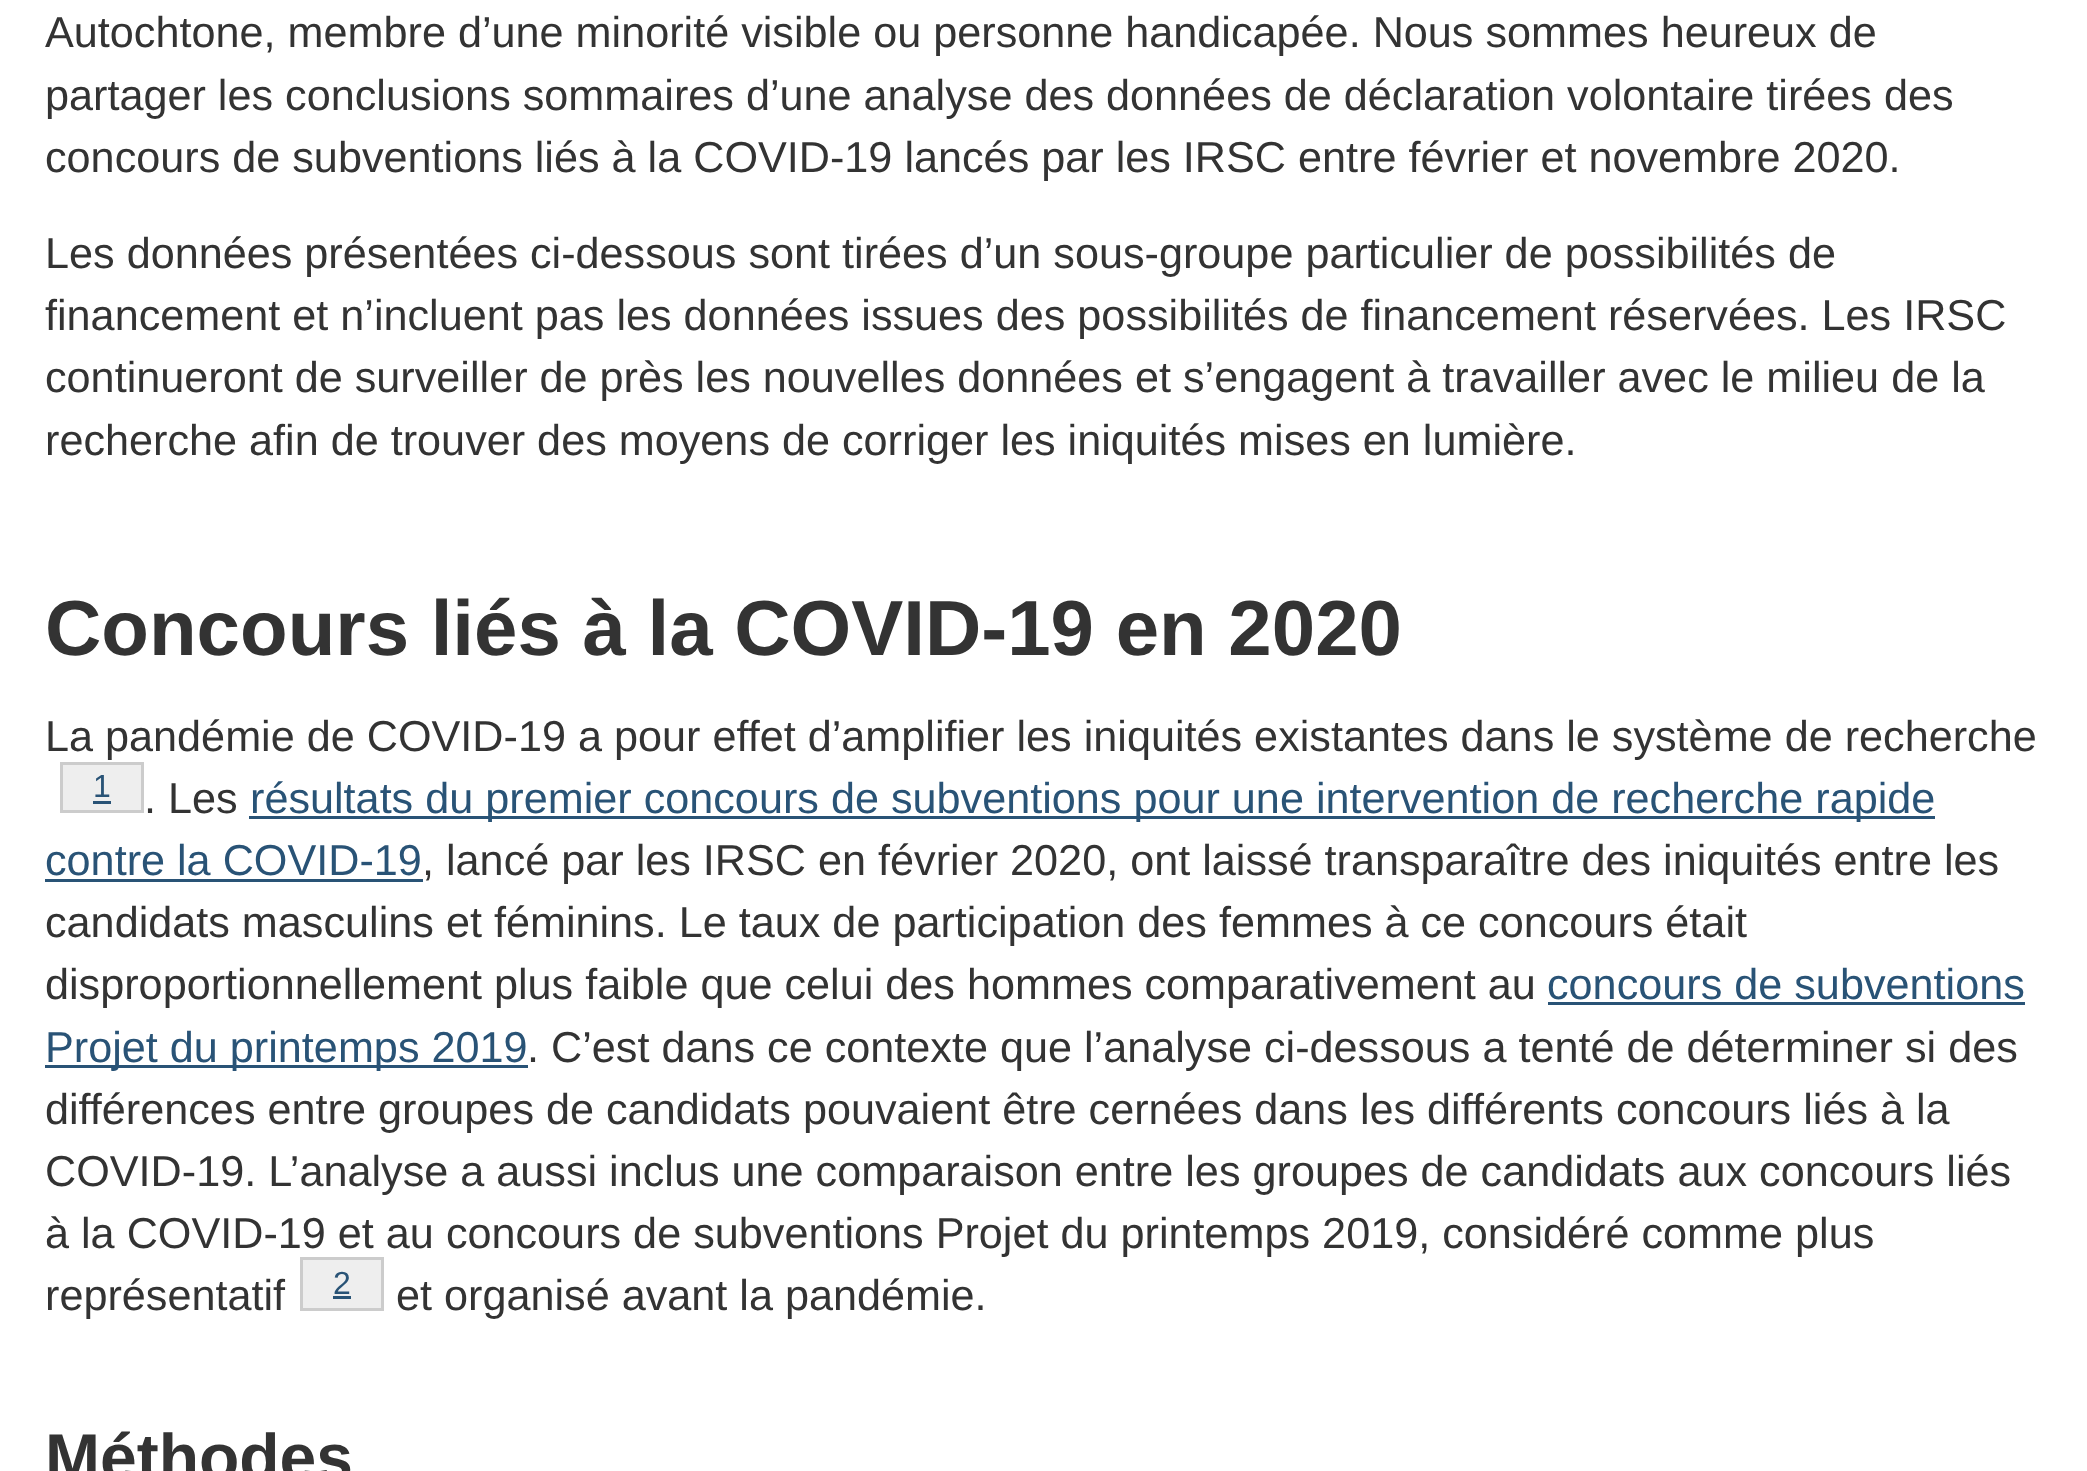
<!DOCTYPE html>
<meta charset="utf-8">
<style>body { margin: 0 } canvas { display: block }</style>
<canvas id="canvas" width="2087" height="1471"></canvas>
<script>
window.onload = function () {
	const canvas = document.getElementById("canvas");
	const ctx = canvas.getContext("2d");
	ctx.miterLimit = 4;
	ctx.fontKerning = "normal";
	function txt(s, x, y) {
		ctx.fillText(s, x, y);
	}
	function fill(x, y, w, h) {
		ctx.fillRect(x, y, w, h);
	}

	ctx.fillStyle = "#FFFFFF";
	fill(0, 0, 2087, 1471);
	ctx.fillStyle = "#EEEEEE";
	ctx.beginPath();
	ctx.rect(61.5, 763.5, 81, 48);
	ctx.fill();
	ctx.strokeStyle = "#CCCCCC";
	ctx.lineWidth = 3;
	ctx.stroke();
	ctx.fillStyle = "#295376";
	fill(93, 801, 18, 3);
	fill(249, 816, 1686, 3);
	fill(45, 879, 378, 3);
	fill(1548, 1002, 477, 3);
	fill(45, 1065, 483, 3);
	ctx.fillStyle = "#EEEEEE";
	ctx.beginPath();
	ctx.rect(301.5, 1258.5, 81, 51);
	ctx.fill();
	ctx.stroke();
	ctx.fillStyle = "#295376";
	fill(333, 1296, 18, 3);
	ctx.font = "43.2px Liberation Sans";
	ctx.fillStyle = "#333333";
	txt("Autochtone, membre d’une minorité visible ou personne handicapée. Nous sommes heureux de", 45, 47);
	txt("partager les conclusions sommaires d’une analyse des données de déclaration volontaire tirées des", 45, 110);
	txt("concours de subventions liés à la COVID-19 lancés par les IRSC entre février et novembre 2020.", 45, 172);
	txt("Les données présentées ci-dessous sont tirées d’un sous-groupe particulier de possibilités de", 45, 268);
	txt("financement et n’incluent pas les données issues des possibilités de financement réservées. Les IRSC", 45, 330);
	txt("continueront de surveiller de près les nouvelles données et s’engagent à travailler avec le milieu de la", 45, 392);
	txt("recherche afin de trouver des moyens de corriger les iniquités mises en lumière.", 45, 455);
	ctx.font = "bold 78px Liberation Sans";
	txt("Concours liés à la COVID-19 en 2020", 45, 655);
	ctx.font = "43.2px Liberation Sans";
	txt("La pandémie de COVID-19 a pour effet d’amplifier les iniquités existantes dans le système de recherche", 45, 751);
	ctx.font = "32px Liberation Sans";
	ctx.fillStyle = "#295376";
	txt("1", 93, 797);
	ctx.font = "43.2px Liberation Sans";
	ctx.fillStyle = "#333333";
	txt(". Les", 144, 813);
	ctx.fillStyle = "#295376";
	txt("résultats du premier concours de subventions pour une intervention de recherche rapide", 250, 813);
	txt("contre la COVID-19", 45, 875);
	ctx.fillStyle = "#333333";
	txt(", lancé par les IRSC en février 2020, ont laissé transparaître des iniquités entre les", 422, 875);
	txt("candidats masculins et féminins. Le taux de participation des femmes à ce concours était", 45, 937);
	txt("disproportionnellement plus faible que celui des hommes comparativement au", 45, 999);
	ctx.fillStyle = "#295376";
	txt("concours de subventions", 1547, 999);
	txt("Projet du printemps 2019", 45, 1062);
	ctx.fillStyle = "#333333";
	txt(". C’est dans ce contexte que l’analyse ci-dessous a tenté de déterminer si des", 527, 1062);
	txt("différences entre groupes de candidats pouvaient être cernées dans les différents concours liés à la", 45, 1124);
	txt("COVID-19. L’analyse a aussi inclus une comparaison entre les groupes de candidats aux concours liés", 45, 1186);
	txt("à la COVID-19 et au concours de subventions Projet du printemps 2019, considéré comme plus", 45, 1248);
	txt("représentatif", 45, 1310);
	ctx.font = "32px Liberation Sans";
	ctx.fillStyle = "#295376";
	txt("2", 333, 1294);
	ctx.font = "43.2px Liberation Sans";
	ctx.fillStyle = "#333333";
	txt("et organisé avant la pandémie.", 396, 1310);
	ctx.font = "bold 66px Liberation Sans";
	txt("Méthodes", 45, 1480);
};
</script>
